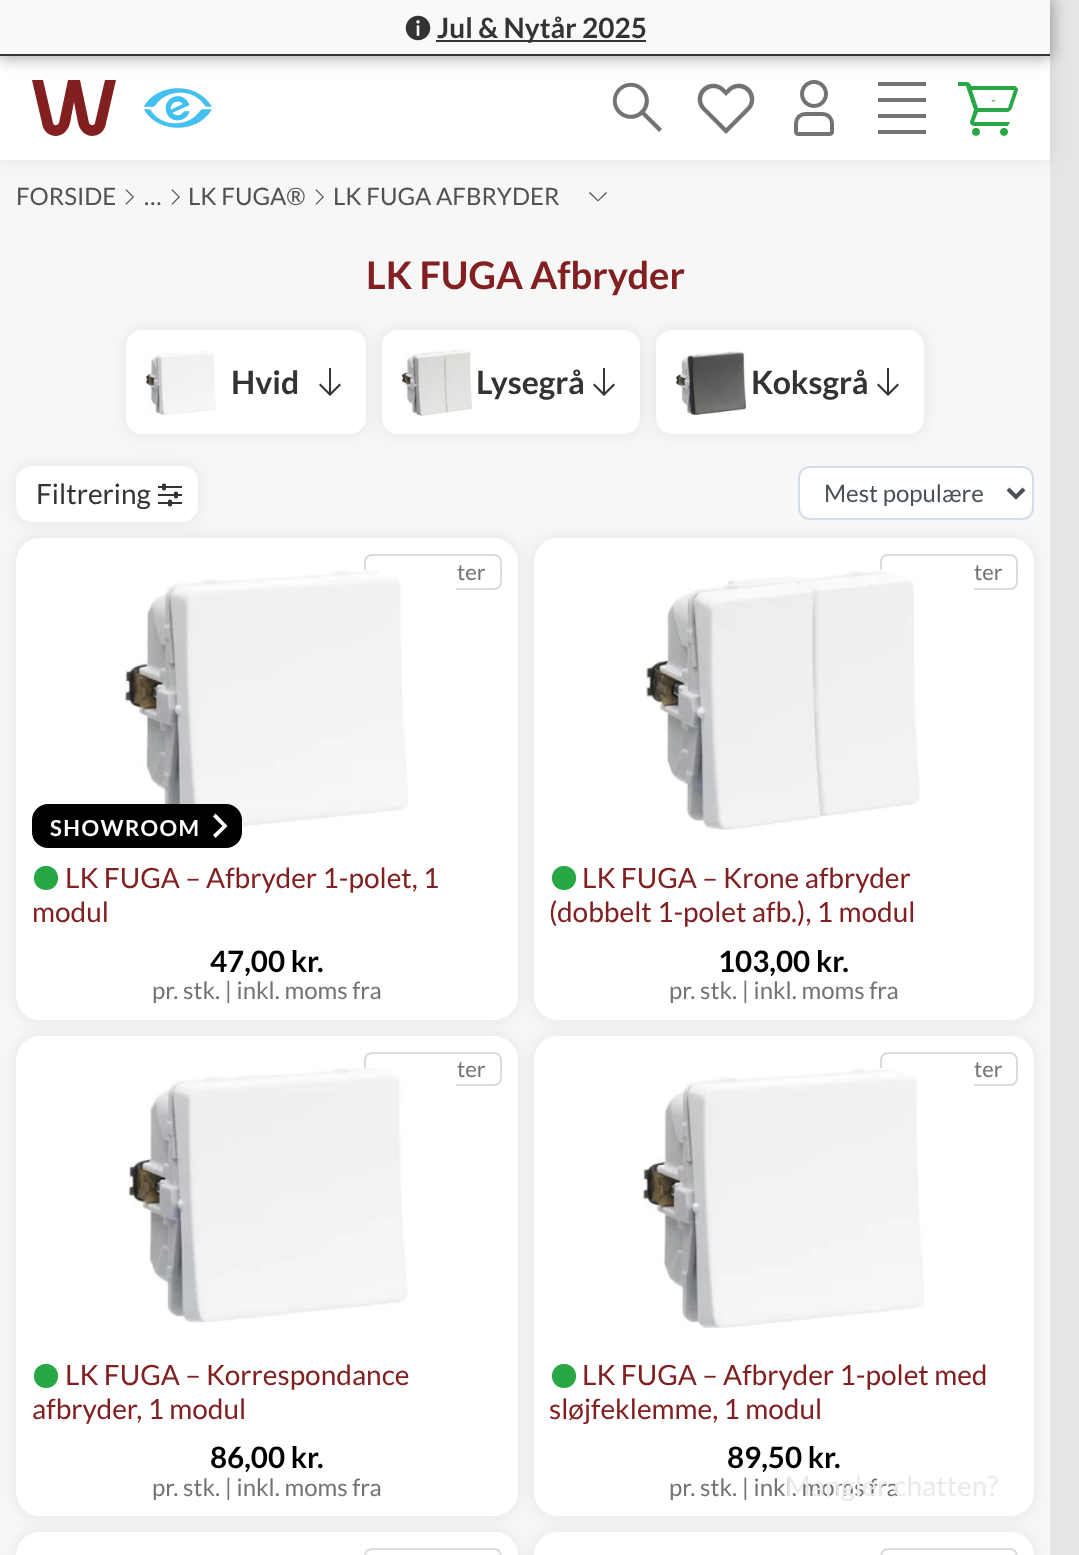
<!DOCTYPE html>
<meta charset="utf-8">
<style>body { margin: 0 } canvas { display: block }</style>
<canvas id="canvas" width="1079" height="1555"></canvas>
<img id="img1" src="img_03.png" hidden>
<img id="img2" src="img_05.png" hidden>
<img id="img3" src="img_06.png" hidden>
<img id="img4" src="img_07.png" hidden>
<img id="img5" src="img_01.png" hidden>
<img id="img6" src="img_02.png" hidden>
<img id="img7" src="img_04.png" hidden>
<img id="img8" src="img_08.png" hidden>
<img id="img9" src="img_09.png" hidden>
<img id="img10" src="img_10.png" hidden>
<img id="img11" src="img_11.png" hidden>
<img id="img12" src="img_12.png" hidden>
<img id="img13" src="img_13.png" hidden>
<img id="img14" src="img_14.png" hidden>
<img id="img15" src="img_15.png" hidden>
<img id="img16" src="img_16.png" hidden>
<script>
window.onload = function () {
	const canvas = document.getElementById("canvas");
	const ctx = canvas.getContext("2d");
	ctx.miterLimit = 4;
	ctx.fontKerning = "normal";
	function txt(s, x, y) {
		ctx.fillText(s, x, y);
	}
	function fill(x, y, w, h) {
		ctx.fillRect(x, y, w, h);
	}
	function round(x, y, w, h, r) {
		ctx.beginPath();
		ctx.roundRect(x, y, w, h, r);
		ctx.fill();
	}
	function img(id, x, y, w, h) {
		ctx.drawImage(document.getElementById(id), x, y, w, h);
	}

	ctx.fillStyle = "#E5E5E5";
	fill(0, 0, 1079, 1555);
	ctx.fillStyle = "#F7F7F7";
	fill(0, 160, 1050, 1395);
	ctx.fillStyle = "rgba(0, 0, 0, 0.06)";
	ctx.filter = "blur(8px)";
	ctx.beginPath();
	ctx.rect(-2, 54, 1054, 108);
	ctx.fill();
	ctx.filter = "none";
	ctx.fillStyle = "#FFFFFF";
	fill(0, 56, 1050, 104);
	ctx.fillStyle = "#821F21";
	ctx.beginPath();
	ctx.moveTo(32, 80);
	ctx.lineTo(42, 123);
	ctx.bezierCurveTo(43, 132, 50, 136, 56, 136);
	ctx.bezierCurveTo(61, 136, 68, 132, 70, 123);
	ctx.lineTo(74, 102);
	ctx.lineTo(78, 123);
	ctx.bezierCurveTo(80, 132, 87, 136, 92, 136);
	ctx.bezierCurveTo(98, 136, 105, 132, 106, 123);
	ctx.lineTo(116, 80);
	ctx.lineTo(105, 80);
	ctx.lineTo(95, 123);
	ctx.bezierCurveTo(94, 126, 91, 126, 89, 123);
	ctx.lineTo(80, 80);
	ctx.lineTo(68, 80);
	ctx.lineTo(59, 123);
	ctx.bezierCurveTo(57, 126, 54, 126, 53, 123);
	ctx.lineTo(43, 80);
	ctx.closePath();
	ctx.fill();
	img("img1", 612, 82, 50, 50);
	img("img2", 794, 80, 40, 56);
	img("img3", 878, 82, 48, 52);
	img("img4", 958, 82, 60, 54);
	ctx.fillStyle = "rgba(0, 0, 0, 0.35)";
	ctx.filter = "blur(8px)";
	ctx.beginPath();
	ctx.rect(-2, -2, 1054, 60);
	ctx.fill();
	ctx.filter = "none";
	ctx.fillStyle = "#F9F9F9";
	fill(0, 0, 1050, 54);
	ctx.fillStyle = "#333333";
	fill(0, 54, 1050, 2);
	img("img5", 405, 15, 26, 26);
	fill(436, 40, 210, 2);
	img("img6", 144, 88, 68, 40);
	img("img7", 697, 83, 58, 51);
	img("img8", 125, 189, 9, 16);
	img("img8", 171, 189, 9, 16);
	img("img8", 315, 189, 9, 16);
	ctx.fillStyle = "#525252";
	ctx.beginPath();
	ctx.moveTo(607, 193);
	ctx.lineTo(606, 192);
	ctx.lineTo(598, 200);
	ctx.lineTo(590, 192);
	ctx.lineTo(589, 193);
	ctx.lineTo(598, 201.5);
	ctx.closePath();
	ctx.fill();
	ctx.fillStyle = "rgba(0, 0, 0, 0.06)";
	ctx.filter = "blur(8px)";
	ctx.beginPath();
	ctx.roundRect(124, 328, 244, 108, 18);
	ctx.fill();
	ctx.filter = "none";
	ctx.fillStyle = "#FFFFFF";
	ctx.beginPath();
	ctx.roundRect(128, 332, 236, 100, 14);
	ctx.fill();
	ctx.strokeStyle = "#FFFFFF";
	ctx.lineWidth = 4;
	ctx.stroke();
	img("img9", 146, 351, 70, 65);
	ctx.fillStyle = "#333333";
	ctx.beginPath();
	ctx.moveTo(341, 385);
	ctx.lineTo(339.5, 383.5);
	ctx.lineTo(331, 392);
	ctx.lineTo(331, 368);
	ctx.lineTo(329, 368);
	ctx.lineTo(329, 392);
	ctx.lineTo(320.5, 383.5);
	ctx.lineTo(319, 385);
	ctx.lineTo(330, 396);
	ctx.closePath();
	ctx.fill();
	ctx.fillStyle = "rgba(0, 0, 0, 0.06)";
	ctx.filter = "blur(8px)";
	ctx.beginPath();
	ctx.roundRect(380, 328, 262, 108, 18);
	ctx.fill();
	ctx.filter = "none";
	ctx.fillStyle = "#FFFFFF";
	ctx.beginPath();
	ctx.roundRect(384, 332, 254, 100, 14);
	ctx.fill();
	ctx.stroke();
	img("img10", 402, 349, 70, 67);
	ctx.fillStyle = "#333333";
	ctx.beginPath();
	ctx.moveTo(615, 385);
	ctx.lineTo(613.5, 383.5);
	ctx.lineTo(605, 392);
	ctx.lineTo(605, 368);
	ctx.lineTo(603, 368);
	ctx.lineTo(603, 392);
	ctx.lineTo(594.5, 383.5);
	ctx.lineTo(593, 385);
	ctx.lineTo(604, 396);
	ctx.closePath();
	ctx.fill();
	ctx.fillStyle = "rgba(0, 0, 0, 0.06)";
	ctx.filter = "blur(8px)";
	ctx.beginPath();
	ctx.roundRect(654, 328, 272, 108, 18);
	ctx.fill();
	ctx.filter = "none";
	ctx.fillStyle = "#FFFFFF";
	ctx.beginPath();
	ctx.roundRect(658, 332, 264, 100, 14);
	ctx.fill();
	ctx.stroke();
	img("img11", 676, 351, 70, 64);
	ctx.fillStyle = "#333333";
	ctx.beginPath();
	ctx.moveTo(899, 385);
	ctx.lineTo(897.5, 383.5);
	ctx.lineTo(889, 392);
	ctx.lineTo(889, 368);
	ctx.lineTo(887, 368);
	ctx.lineTo(887, 392);
	ctx.lineTo(878.5, 383.5);
	ctx.lineTo(877, 385);
	ctx.lineTo(888, 396);
	ctx.closePath();
	ctx.fill();
	ctx.fillStyle = "rgba(0, 0, 0, 0.06)";
	ctx.filter = "blur(8px)";
	ctx.beginPath();
	ctx.roundRect(14, 464, 186, 60, 18);
	ctx.fill();
	ctx.filter = "none";
	ctx.fillStyle = "#FFFFFF";
	ctx.beginPath();
	ctx.roundRect(18, 468, 178, 52, 14);
	ctx.fill();
	ctx.stroke();
	img("img12", 158, 483, 24, 24);
	ctx.beginPath();
	ctx.roundRect(799, 467, 234, 52, 11);
	ctx.fill();
	ctx.strokeStyle = "#D4DCE5";
	ctx.lineWidth = 2;
	ctx.stroke();
	ctx.beginPath();
	ctx.moveTo(1008, 489);
	ctx.lineTo(1016, 497);
	ctx.lineTo(1024, 489);
	ctx.strokeStyle = "#495057";
	ctx.lineWidth = 4;
	ctx.stroke();
	ctx.fillStyle = "rgba(0, 0, 0, 0.06)";
	ctx.filter = "blur(8px)";
	ctx.beginPath();
	ctx.roundRect(14, 536, 506, 486, 26);
	ctx.fill();
	ctx.filter = "none";
	ctx.fillStyle = "#FFFFFF";
	round(16, 538, 502, 482, 24);
	ctx.beginPath();
	ctx.roundRect(365, 555, 136, 34, 7);
	ctx.strokeStyle = "#DBDBDB";
	ctx.lineWidth = 2;
	ctx.stroke();
	fill(364, 570, 92, 20);
	img("img13", 124, 570, 284, 260);
	ctx.fillStyle = "#000000";
	ctx.beginPath();
	ctx.roundRect(34, 806, 206, 40, 14);
	ctx.fill();
	ctx.strokeStyle = "#000000";
	ctx.lineWidth = 4;
	ctx.stroke();
	ctx.fillStyle = "#FFFFFF";
	ctx.beginPath();
	ctx.moveTo(215.5, 813.5);
	ctx.lineTo(213, 816.5);
	ctx.lineTo(222.5, 826);
	ctx.lineTo(213, 835);
	ctx.lineTo(215.5, 838);
	ctx.lineTo(227.5, 826);
	ctx.closePath();
	ctx.fill();
	ctx.fillStyle = "#28A745";
	ctx.beginPath();
	ctx.moveTo(46.5, 866);
	ctx.bezierCurveTo(62, 866.5, 62, 890, 46, 890);
	ctx.bezierCurveTo(30, 890, 30, 866.5, 45.5, 866);
	ctx.closePath();
	ctx.fill();
	ctx.fillStyle = "rgba(0, 0, 0, 0.06)";
	ctx.filter = "blur(8px)";
	ctx.beginPath();
	ctx.roundRect(532, 536, 504, 486, 26);
	ctx.fill();
	ctx.filter = "none";
	ctx.fillStyle = "#FFFFFF";
	round(534, 538, 500, 482, 24);
	ctx.beginPath();
	ctx.roundRect(881, 555, 136, 34, 7);
	ctx.strokeStyle = "#DBDBDB";
	ctx.lineWidth = 2;
	ctx.stroke();
	fill(880, 570, 94, 20);
	img("img14", 645, 571, 275, 259);
	ctx.fillStyle = "#28A745";
	ctx.beginPath();
	ctx.moveTo(564.5, 866);
	ctx.bezierCurveTo(580, 866.5, 580, 890, 564, 890);
	ctx.bezierCurveTo(548, 890, 548, 866.5, 563.5, 866);
	ctx.closePath();
	ctx.fill();
	ctx.fillStyle = "rgba(0, 0, 0, 0.06)";
	ctx.filter = "blur(8px)";
	ctx.beginPath();
	ctx.roundRect(14, 1034, 506, 484, 26);
	ctx.fill();
	ctx.filter = "none";
	ctx.fillStyle = "#FFFFFF";
	round(16, 1036, 502, 480, 24);
	ctx.beginPath();
	ctx.roundRect(365, 1053, 136, 32, 7);
	ctx.stroke();
	fill(364, 1068, 92, 18);
	img("img15", 128, 1068, 280, 255);
	ctx.fillStyle = "#28A745";
	ctx.beginPath();
	ctx.moveTo(46.5, 1364);
	ctx.bezierCurveTo(62, 1364.5, 62, 1388, 46, 1388);
	ctx.bezierCurveTo(30, 1388, 30, 1364.5, 45.5, 1364);
	ctx.closePath();
	ctx.fill();
	ctx.fillStyle = "rgba(0, 0, 0, 0.06)";
	ctx.filter = "blur(8px)";
	ctx.beginPath();
	ctx.roundRect(532, 1034, 504, 484, 26);
	ctx.fill();
	ctx.filter = "none";
	ctx.fillStyle = "#FFFFFF";
	round(534, 1036, 500, 480, 24);
	ctx.beginPath();
	ctx.roundRect(881, 1053, 136, 32, 7);
	ctx.stroke();
	fill(880, 1068, 94, 18);
	img("img16", 642, 1068, 282, 260);
	ctx.fillStyle = "#28A745";
	ctx.beginPath();
	ctx.moveTo(564.5, 1364);
	ctx.bezierCurveTo(580, 1364.5, 580, 1388, 564, 1388);
	ctx.bezierCurveTo(548, 1388, 548, 1364.5, 563.5, 1364);
	ctx.closePath();
	ctx.fill();
	ctx.fillStyle = "rgba(0, 0, 0, 0.06)";
	ctx.filter = "blur(8px)";
	ctx.beginPath();
	ctx.roundRect(14, 1530, 506, 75, 26);
	ctx.fill();
	ctx.filter = "none";
	ctx.fillStyle = "#FFFFFF";
	round(16, 1532, 502, 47, 24);
	ctx.beginPath();
	ctx.roundRect(365, 1549, 136, 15, 7);
	ctx.stroke();
	ctx.fillStyle = "rgba(0, 0, 0, 0.06)";
	ctx.filter = "blur(8px)";
	ctx.beginPath();
	ctx.roundRect(532, 1530, 504, 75, 26);
	ctx.fill();
	ctx.filter = "none";
	ctx.fillStyle = "#FFFFFF";
	round(534, 1532, 500, 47, 24);
	ctx.beginPath();
	ctx.roundRect(881, 1549, 136, 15, 7);
	ctx.stroke();
	ctx.font = "bold 28px Lato";
	ctx.fillStyle = "#333333";
	txt("Jul & Nytår 2025", 437, 38);
	ctx.font = "14px Lato";
	ctx.fillStyle = "#28A745";
	txt("-", 991, 105);
	ctx.font = "24px Lato";
	ctx.fillStyle = "#525252";
	txt("FORSIDE", 16, 205);
	txt("…", 144, 205);
	txt("LK FUGA®", 188, 205);
	txt("LK FUGA AFBRYDER", 333, 205);
	ctx.font = "bold 38px Lato";
	ctx.fillStyle = "#821F21";
	txt("LK FUGA Afbryder", 366, 289);
	ctx.font = "bold 32px Lato";
	ctx.fillStyle = "#333333";
	txt("Hvid", 231, 394);
	txt("Lysegrå", 476, 394);
	txt("Koksgrå", 751, 394);
	ctx.font = "28px Lato";
	txt("Filtrering", 36, 504);
	ctx.font = "24px Lato";
	ctx.fillStyle = "#495057";
	txt("Mest populære", 824, 502);
	ctx.font = "22px Lato";
	ctx.fillStyle = "#737373";
	txt("ter", 457, 580);
	ctx.letterSpacing = "1.5px";
	ctx.font = "bold 22px Lato";
	ctx.fillStyle = "#FFFFFF";
	txt("SHOWROOM", 50, 836);
	ctx.letterSpacing = "0px";
	ctx.font = "28px Lato";
	ctx.fillStyle = "#821F21";
	txt("LK FUGA – Afbryder 1-polet, 1", 65, 888);
	txt("modul", 32, 922);
	ctx.font = "bold 29.5px Lato";
	ctx.fillStyle = "#000000";
	txt("47,00 kr.", 210, 972);
	ctx.font = "24px Lato";
	ctx.fillStyle = "#737373";
	txt("pr. stk. | inkl. moms fra", 152, 999);
	ctx.font = "22px Lato";
	txt("ter", 974, 580);
	ctx.font = "28px Lato";
	ctx.fillStyle = "#821F21";
	txt("LK FUGA – Krone afbryder", 582, 888);
	txt("(dobbelt 1-polet afb.), 1 modul", 549, 922);
	ctx.font = "bold 29.5px Lato";
	ctx.fillStyle = "#000000";
	txt("103,00 kr.", 718, 972);
	ctx.font = "24px Lato";
	ctx.fillStyle = "#737373";
	txt("pr. stk. | inkl. moms fra", 669, 999);
	ctx.font = "22px Lato";
	txt("ter", 457, 1077);
	ctx.font = "28px Lato";
	ctx.fillStyle = "#821F21";
	txt("LK FUGA – Korrespondance", 65, 1385);
	txt("afbryder, 1 modul", 32, 1419);
	ctx.font = "bold 29.5px Lato";
	ctx.fillStyle = "#000000";
	txt("86,00 kr.", 210, 1468);
	ctx.font = "24px Lato";
	ctx.fillStyle = "#737373";
	txt("pr. stk. | inkl. moms fra", 152, 1496);
	ctx.font = "22px Lato";
	txt("ter", 974, 1077);
	ctx.font = "28px Lato";
	ctx.fillStyle = "#821F21";
	txt("LK FUGA – Afbryder 1-polet med", 582, 1385);
	txt("sløjfeklemme, 1 modul", 549, 1419);
	ctx.font = "bold 29.5px Lato";
	ctx.fillStyle = "#000000";
	txt("89,50 kr.", 727, 1468);
	ctx.font = "24px Lato";
	ctx.fillStyle = "#737373";
	txt("pr. stk. | inkl. moms fra", 669, 1496);
	ctx.font = "28px Lato";
	ctx.fillStyle = "#EAEAEA";
	txt("Mangler chatten?", 785, 1496);
};
</script>
